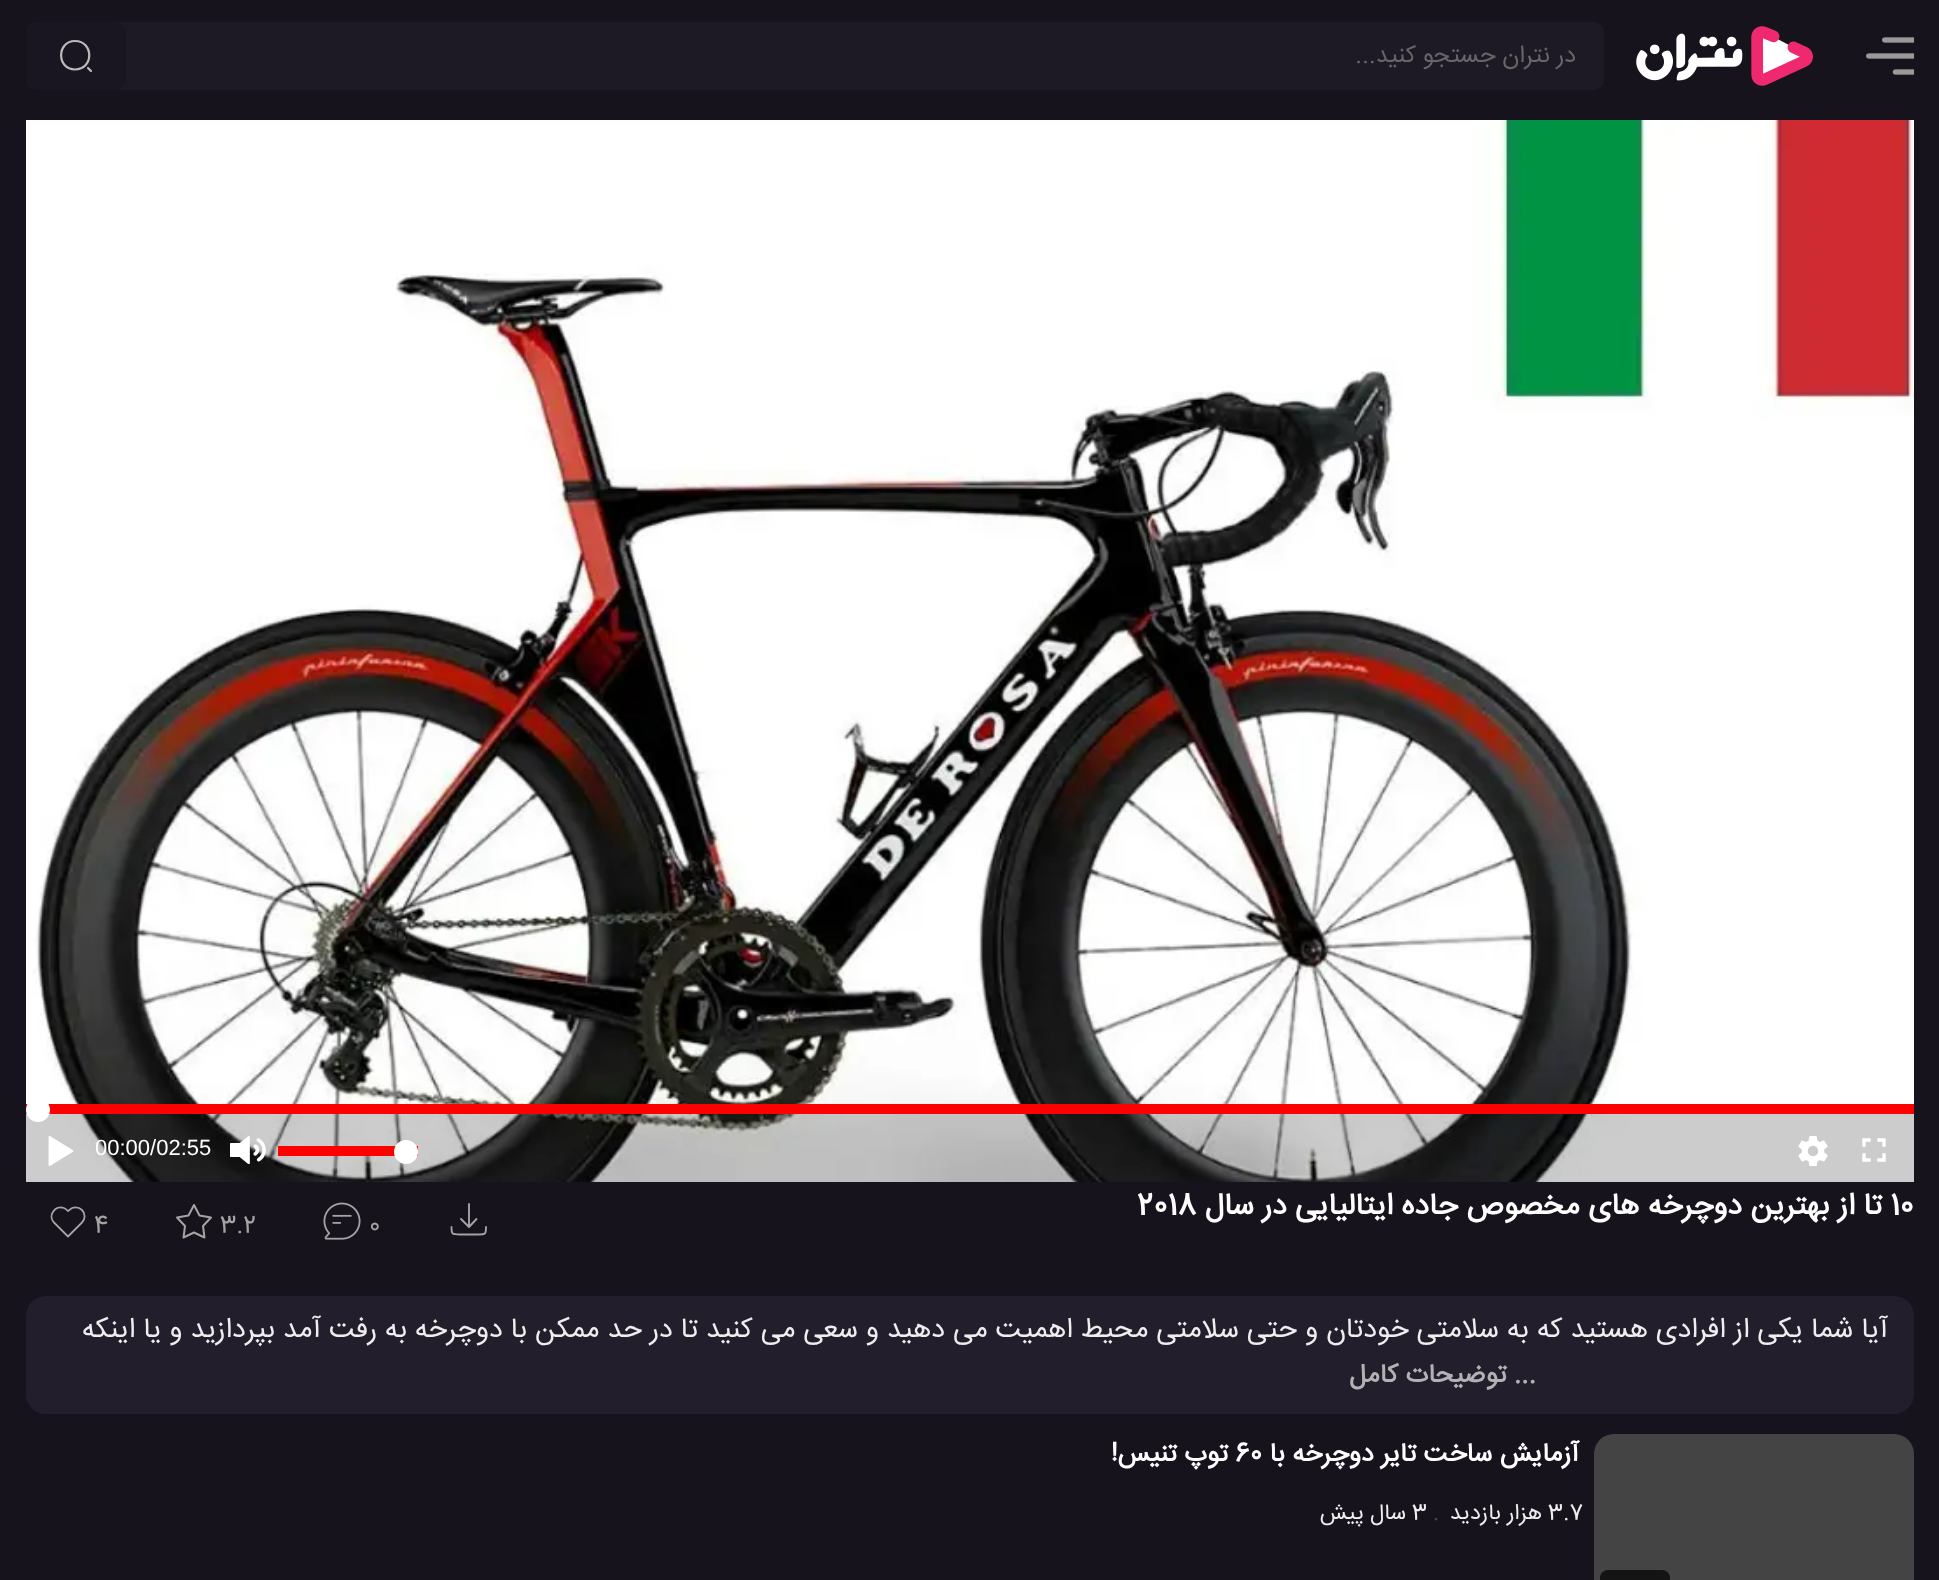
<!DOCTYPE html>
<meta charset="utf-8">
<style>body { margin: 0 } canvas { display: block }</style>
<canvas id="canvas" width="1939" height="1580"></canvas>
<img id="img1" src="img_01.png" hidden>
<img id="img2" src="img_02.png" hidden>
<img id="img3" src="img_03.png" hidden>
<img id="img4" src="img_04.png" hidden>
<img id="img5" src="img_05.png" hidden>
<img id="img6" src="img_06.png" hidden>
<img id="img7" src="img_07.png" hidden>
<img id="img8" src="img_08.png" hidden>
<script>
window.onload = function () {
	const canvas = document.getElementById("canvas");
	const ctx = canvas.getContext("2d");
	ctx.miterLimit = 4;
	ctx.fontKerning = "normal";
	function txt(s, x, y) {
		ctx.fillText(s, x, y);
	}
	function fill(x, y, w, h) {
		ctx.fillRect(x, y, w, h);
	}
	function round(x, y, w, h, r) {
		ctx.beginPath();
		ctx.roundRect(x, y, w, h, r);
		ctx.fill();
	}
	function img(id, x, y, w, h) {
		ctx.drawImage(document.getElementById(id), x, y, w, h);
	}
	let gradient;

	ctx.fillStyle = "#16131C";
	fill(0, 0, 1939, 1580);
	img("img1", 1866, 37, 48, 38);
	img("img2", 1636, 26, 177, 60);
	ctx.fillStyle = "#1D1A26";
	round(26, 22, 1578, 68, 10);
	ctx.fillStyle = "#191622";
	round(26, 22, 100, 68, 12);
	ctx.beginPath();
	ctx.moveTo(75, 69.5);
	ctx.bezierCurveTo(94, 69.5, 94, 41, 75, 41);
	ctx.bezierCurveTo(56.5, 41, 56.5, 69.5, 75, 69.5);
	ctx.closePath();
	ctx.moveTo(91, 71);
	ctx.lineTo(88, 68);
	ctx.strokeStyle = "#BBBBBB";
	ctx.lineWidth = 2.2;
	ctx.lineCap = "round";
	ctx.lineJoin = "round";
	ctx.stroke();
	img("img3", 26, 120, 1888, 1062);
	ctx.fillStyle = "rgba(0, 0, 0, 0.2)";
	fill(26, 1114, 1888, 68);
	ctx.fillStyle = "#FF0000";
	fill(26, 1104, 1888, 10);
	ctx.fillStyle = "#FFFFFF";
	ctx.beginPath();
	ctx.arc(38, 1110, 12, 0, Math.PI * 2);
	ctx.fill();
	img("img4", 1862, 1138, 24, 24);
	img("img5", 1798, 1136, 30, 30);
	ctx.fillStyle = "#FF0000";
	fill(278, 1146, 140, 10);
	ctx.fillStyle = "#FFFFFF";
	ctx.beginPath();
	ctx.arc(406, 1152, 12, 0, Math.PI * 2);
	ctx.fill();
	img("img6", 230, 1136, 36, 28);
	img("img7", 48, 1136, 26, 30);
	ctx.beginPath();
	ctx.moveTo(476.5, 1219);
	ctx.lineTo(469, 1227);
	ctx.moveTo(469, 1227);
	ctx.lineTo(461, 1219);
	ctx.moveTo(469, 1227);
	ctx.lineTo(469, 1204);
	ctx.moveTo(486, 1227);
	ctx.bezierCurveTo(486, 1234.5, 485.5, 1234.5, 478, 1234.5);
	ctx.lineTo(460, 1234.5);
	ctx.bezierCurveTo(452, 1234.5, 451.5, 1234.5, 451.5, 1227);
	ctx.strokeStyle = "#A4A4A4";
	ctx.lineWidth = 1.9;
	ctx.stroke();
	img("img8", 323, 1202, 38, 38);
	ctx.beginPath();
	ctx.moveTo(194, 1205);
	ctx.lineTo(199.5, 1215.5);
	ctx.lineTo(211, 1217.5);
	ctx.lineTo(203, 1226);
	ctx.lineTo(204.5, 1237.5);
	ctx.lineTo(194, 1232.5);
	ctx.lineTo(183.5, 1237.5);
	ctx.lineTo(185, 1226);
	ctx.lineTo(177, 1217.5);
	ctx.lineTo(188.5, 1215.5);
	ctx.closePath();
	ctx.lineWidth = 2;
	ctx.stroke();
	ctx.beginPath();
	ctx.moveTo(54, 1222.5);
	ctx.lineTo(68, 1236.5);
	ctx.lineTo(82, 1222.5);
	ctx.bezierCurveTo(85.5, 1219, 85.5, 1213.5, 82, 1210);
	ctx.bezierCurveTo(78.5, 1206.5, 72.5, 1206.5, 69.5, 1210);
	ctx.lineTo(68, 1211);
	ctx.bezierCurveTo(66.5, 1210, 65.5, 1208.5, 64, 1208);
	ctx.bezierCurveTo(55, 1204.5, 47.5, 1216, 54, 1222.5);
	ctx.closePath();
	ctx.lineWidth = 1.8;
	ctx.lineCap = "butt";
	ctx.stroke();
	ctx.fillStyle = "#231E2B";
	round(26, 1296, 1888, 118, 20);
	gradient = ctx.createLinearGradient(26, 1381, 1914, 1381);
	gradient.addColorStop(0, "#231E2B");
	gradient.addColorStop(0.78, "#231E2B");
	gradient.addColorStop(0.9, "rgba(35, 30, 43, 0)");
	gradient.addColorStop(1, "rgba(0, 0, 0, 0)");
	ctx.fillStyle = gradient;
	ctx.beginPath();
	ctx.roundRect(26, 1348, 1888, 66, [0, 0, 20, 20]);
	ctx.fill();
	ctx.fillStyle = "#444444";
	round(1594, 1434, 320, 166, 20);
	ctx.fillStyle = "#141414";
	round(1600, 1570, 70, 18, 8);
	ctx.direction = "rtl";
	ctx.font = "24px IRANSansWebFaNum";
	ctx.fillStyle = "#666666";
	txt("در نتران جستجو کنید...", 1576, 62);
	ctx.direction = "ltr";
	ctx.font = "22px Liberation Sans";
	ctx.fillStyle = "#FFFFFF";
	txt("00:00/02:55", 95, 1155);
	ctx.font = "bold 30px IRANSansWebFaNum";
	txt("10", 1890, 1214);
	ctx.direction = "rtl";
	txt("تا از بهترین دوچرخه های مخصوص جاده ایتالیایی در سال", 1882, 1214);
	ctx.direction = "ltr";
	txt("2018", 1137, 1214);
	ctx.font = "24px IRANSansWebFaNum";
	ctx.fillStyle = "#A4A4A4";
	txt("0", 369, 1232);
	txt("3.2", 220, 1232);
	txt("4", 94, 1232);
	ctx.direction = "rtl";
	ctx.font = "28px IRANSansWebFaNum";
	ctx.fillStyle = "#EEEEEE";
	txt("آیا شما یکی از افرادی هستید که به سلامتی خودتان و حتی سلامتی محیط اهمیت می دهید و سعی می کنید تا در حد ممکن با دوچرخه به رفت آمد بپردازید و یا اینکه", 1888, 1337);
	ctx.font = "bold 26px IRANSansWebFaNum";
	ctx.fillStyle = "#B2B2B2";
	txt("... توضیحات کامل", 1536, 1382);
	ctx.fillStyle = "#FFFFFF";
	txt("آزمایش ساخت تایر دوچرخه با", 1579, 1461);
	ctx.direction = "ltr";
	txt("60", 1235, 1461);
	ctx.direction = "rtl";
	txt("توپ تنیس!", 1228, 1461);
	ctx.direction = "ltr";
	ctx.font = "22px IRANSansWebFaNum";
	ctx.fillStyle = "#EEEEEE";
	txt("3.7", 1548, 1519);
	ctx.direction = "rtl";
	txt("هزار بازدید", 1542, 1519);
	ctx.direction = "ltr";
	ctx.fillStyle = "#484A57";
	txt(".", 1433, 1519);
	ctx.fillStyle = "#EEEEEE";
	txt("3", 1412, 1519);
	ctx.direction = "rtl";
	txt("سال پیش", 1406, 1519);
};
</script>
